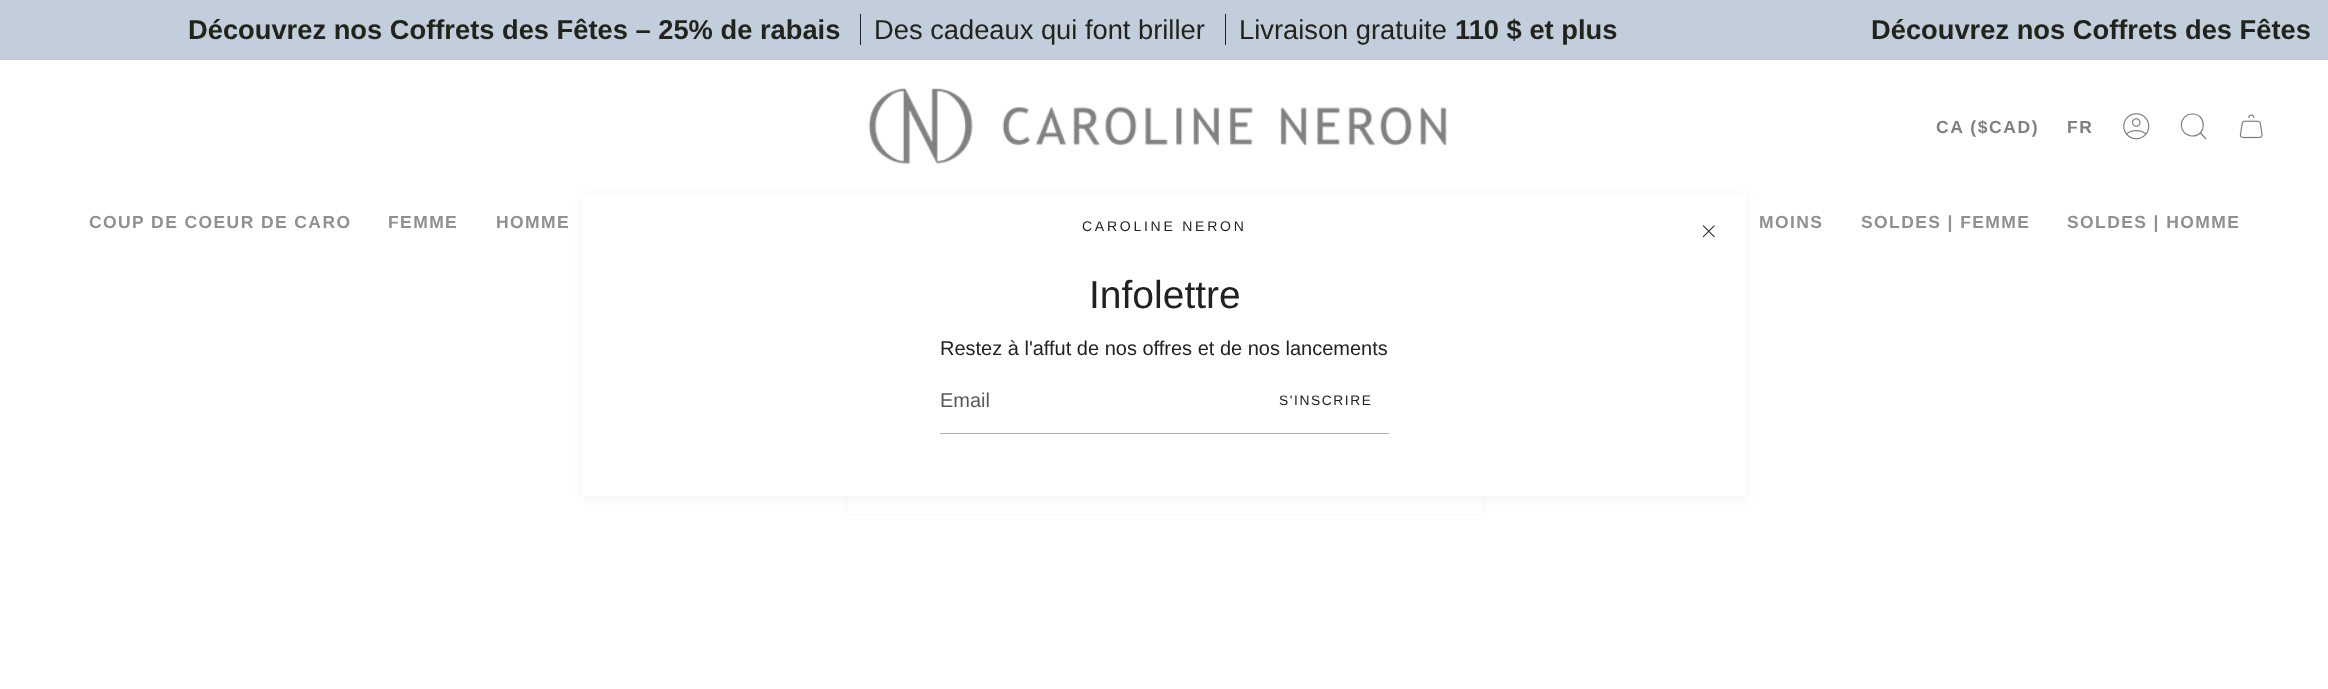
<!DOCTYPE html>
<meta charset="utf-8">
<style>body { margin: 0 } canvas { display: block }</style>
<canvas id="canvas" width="2328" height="689"></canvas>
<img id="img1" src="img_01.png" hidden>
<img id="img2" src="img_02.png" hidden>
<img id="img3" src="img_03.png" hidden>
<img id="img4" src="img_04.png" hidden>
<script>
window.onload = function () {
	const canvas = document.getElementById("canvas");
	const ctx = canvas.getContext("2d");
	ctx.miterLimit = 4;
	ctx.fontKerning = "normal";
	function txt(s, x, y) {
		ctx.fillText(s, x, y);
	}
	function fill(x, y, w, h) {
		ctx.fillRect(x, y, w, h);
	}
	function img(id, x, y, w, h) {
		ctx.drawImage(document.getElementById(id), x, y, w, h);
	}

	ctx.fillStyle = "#FFFFFF";
	fill(0, 0, 2328, 689);
	ctx.fillStyle = "#C2CEDC";
	fill(0, 0, 2328, 60);
	ctx.fillStyle = "#22241B";
	fill(860, 14, 1, 31);
	fill(1225, 14, 1, 31);
	img("img1", 868, 88, 579, 76);
	img("img2", 2123, 113, 27, 27);
	ctx.beginPath();
	ctx.moveTo(2192.5, 114);
	ctx.bezierCurveTo(2207, 114, 2207, 136.5, 2192, 136);
	ctx.bezierCurveTo(2177.5, 135, 2178, 114, 2192.5, 114);
	ctx.closePath();
	ctx.moveTo(2200, 132.5);
	ctx.lineTo(2206, 139);
	ctx.strokeStyle = "#808080";
	ctx.lineWidth = 1.2;
	ctx.stroke();
	img("img3", 2239, 114, 24, 25);
	ctx.strokeStyle = "#F8F8F8";
	ctx.lineWidth = 1;
	ctx.strokeRect(846.5, 453.5, 637, 61);
	ctx.fillStyle = "rgba(0, 0, 0, 0.05)";
	ctx.filter = "blur(6px)";
	ctx.beginPath();
	ctx.rect(583, 196, 1163, 303);
	ctx.fill();
	ctx.filter = "none";
	ctx.fillStyle = "#FFFFFF";
	fill(583, 194, 1163, 302);
	ctx.fillStyle = "#B1B1B1";
	fill(940, 433, 449, 1);
	img("img4", 1702, 225, 13, 13);
	ctx.font = "bold 27.3px Liberation Sans";
	ctx.fillStyle = "#22241B";
	txt("Découvrez nos Coffrets des Fêtes – 25% de rabais", 188, 39);
	ctx.font = "27.3px Liberation Sans";
	txt("Des cadeaux qui font briller", 874, 39);
	txt("Livraison gratuite", 1239, 39);
	ctx.font = "bold 27.3px Liberation Sans";
	txt("110 $ et plus", 1455, 39);
	txt("Découvrez nos Coffrets des Fêtes", 1871, 39);
	ctx.letterSpacing = "1.6px";
	ctx.font = "bold 17.5px Liberation Sans";
	ctx.fillStyle = "#808080";
	txt("CA ($CAD)", 1936, 133);
	txt("FR", 2067, 133);
	ctx.letterSpacing = "1.4px";
	ctx.fillStyle = "#909090";
	txt("COUP DE COEUR DE CARO", 89, 228);
	txt("FEMME", 388, 228);
	txt("HOMME", 496, 228);
	txt("MOINS", 1759, 228);
	txt("SOLDES | FEMME", 1861, 228);
	txt("SOLDES | HOMME", 2067, 228);
	ctx.letterSpacing = "2.75px";
	ctx.font = "14px Liberation Sans";
	ctx.fillStyle = "#212121";
	txt("CAROLINE NERON", 1082, 231);
	ctx.letterSpacing = "0px";
	ctx.font = "39px Liberation Sans";
	txt("Infolettre", 1089, 308);
	ctx.font = "20px Liberation Sans";
	txt("Restez à l'affut de nos offres et de nos lancements", 940, 355);
	ctx.fillStyle = "#595959";
	txt("Email", 940, 407);
	ctx.letterSpacing = "1.6px";
	ctx.font = "13.75px Liberation Sans";
	ctx.fillStyle = "#212121";
	txt("S'INSCRIRE", 1279, 405);
};
</script>
